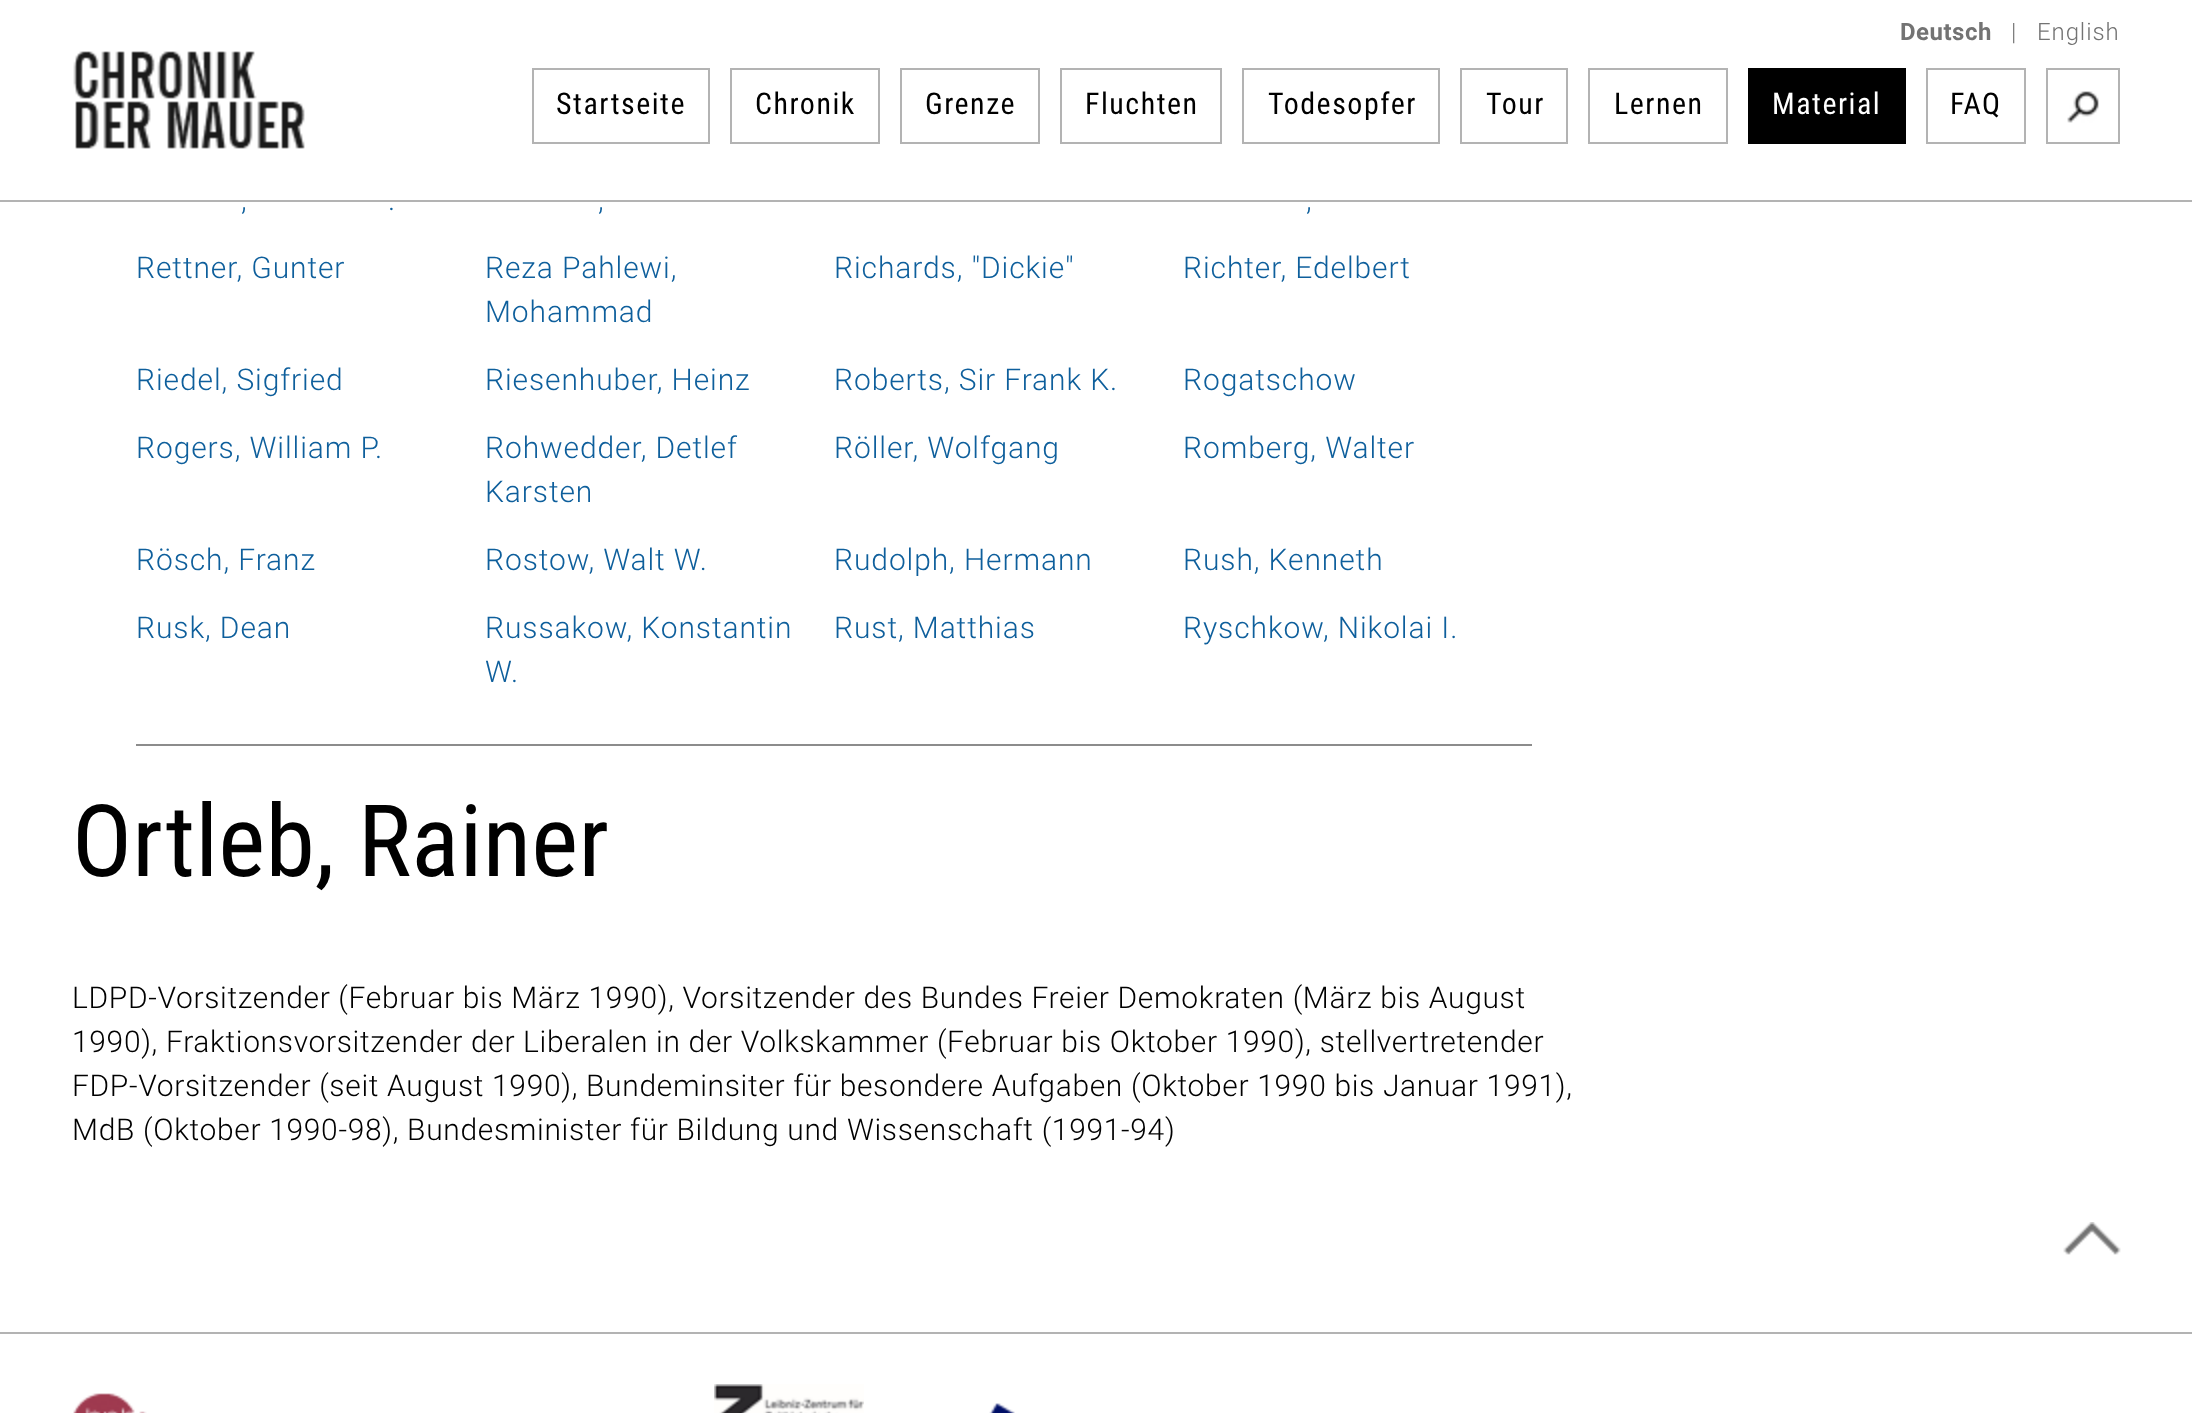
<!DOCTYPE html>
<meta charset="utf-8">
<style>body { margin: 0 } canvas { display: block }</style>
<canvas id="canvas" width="2192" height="1413"></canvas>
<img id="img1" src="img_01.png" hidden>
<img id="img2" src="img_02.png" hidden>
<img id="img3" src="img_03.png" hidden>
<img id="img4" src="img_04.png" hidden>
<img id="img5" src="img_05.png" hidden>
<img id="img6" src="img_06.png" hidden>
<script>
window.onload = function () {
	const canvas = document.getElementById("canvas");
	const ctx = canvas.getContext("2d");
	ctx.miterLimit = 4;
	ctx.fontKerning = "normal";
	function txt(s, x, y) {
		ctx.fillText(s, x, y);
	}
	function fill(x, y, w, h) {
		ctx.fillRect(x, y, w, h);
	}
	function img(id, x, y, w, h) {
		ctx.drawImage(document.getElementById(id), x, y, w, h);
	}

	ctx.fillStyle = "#FFFFFF";
	fill(0, 0, 2192, 1413);
	img("img1", 73, 51, 232, 98);
	ctx.strokeStyle = "#B3B3B3";
	ctx.lineWidth = 2;
	ctx.strokeRect(533, 69, 176, 74);
	ctx.strokeRect(731, 69, 148, 74);
	ctx.strokeRect(901, 69, 138, 74);
	ctx.strokeRect(1061, 69, 160, 74);
	ctx.strokeRect(1243, 69, 196, 74);
	ctx.strokeRect(1461, 69, 106, 74);
	ctx.strokeRect(1589, 69, 138, 74);
	ctx.fillStyle = "#000000";
	fill(1748, 68, 158, 76);
	ctx.strokeRect(1927, 69, 98, 74);
	img("img2", 2067, 91, 32, 32);
	ctx.strokeRect(2047, 69, 72, 74);
	ctx.fillStyle = "#B3B3B3";
	fill(0, 200, 2192, 2);
	ctx.fillStyle = "#8C8C8C";
	fill(136, 744, 1396, 2);
	img("img3", 2063, 1222, 58, 33);
	ctx.fillStyle = "#B3B3B3";
	fill(0, 1332, 2192, 2);
	img("img4", 73, 1393, 74, 20);
	img("img5", 714, 1384, 150, 29);
	img("img6", 989, 1403, 26, 10);
	ctx.letterSpacing = "0.5px";
	ctx.font = "bold 24px Roboto";
	ctx.fillStyle = "#737373";
	txt("Deutsch", 1900, 40);
	ctx.letterSpacing = "0.9px";
	ctx.font = "300 24px Roboto";
	txt("|", 2011, 40);
	txt("English", 2037, 40);
	ctx.letterSpacing = "1.5px";
	ctx.font = "30px Roboto Condensed";
	ctx.fillStyle = "#000000";
	txt("Startseite", 556, 114);
	txt("Chronik", 755, 114);
	txt("Grenze", 925, 114);
	txt("Fluchten", 1085, 114);
	txt("Todesopfer", 1268, 114);
	txt("Tour", 1486, 114);
	txt("Lernen", 1614, 114);
	ctx.fillStyle = "#FFFFFF";
	txt("Material", 1772, 114);
	ctx.fillStyle = "#000000";
	txt("FAQ", 1950, 114);
	ctx.letterSpacing = "0.9px";
	ctx.font = "300 30px Roboto";
	ctx.fillStyle = "#0E5F9C";
	txt(",", 241, 210);
	txt(".", 388, 210);
	txt(",", 598, 210);
	txt(",", 1306, 210);
	txt("Rettner, Gunter", 136, 278);
	txt("Reza Pahlewi,", 485, 278);
	txt("Mohammad", 485, 322);
	txt("Richards, \"Dickie\"", 834, 278);
	txt("Richter, Edelbert", 1183, 278);
	txt("Riedel, Sigfried", 136, 390);
	txt("Riesenhuber, Heinz", 485, 390);
	txt("Roberts, Sir Frank K.", 834, 390);
	txt("Rogatschow", 1183, 390);
	txt("Rogers, William P.", 136, 458);
	txt("Rohwedder, Detlef", 485, 458);
	txt("Karsten", 485, 502);
	txt("Röller, Wolfgang", 834, 458);
	txt("Romberg, Walter", 1183, 458);
	txt("Rösch, Franz", 136, 570);
	txt("Rostow, Walt W.", 485, 570);
	txt("Rudolph, Hermann", 834, 570);
	txt("Rush, Kenneth", 1183, 570);
	txt("Rusk, Dean", 136, 638);
	txt("Russakow, Konstantin", 485, 638);
	txt("W.", 485, 682);
	txt("Rust, Matthias", 834, 638);
	txt("Ryschkow, Nikolai I.", 1183, 638);
	ctx.letterSpacing = "0.25px";
	ctx.font = "100px Roboto Condensed";
	ctx.fillStyle = "#000000";
	txt("Ortleb, Rainer", 72, 876);
	ctx.letterSpacing = "0.67px";
	ctx.font = "300 30px Roboto";
	txt("LDPD-Vorsitzender (Februar bis März 1990), Vorsitzender des Bundes Freier Demokraten (März bis August", 72, 1008);
	txt("1990), Fraktionsvorsitzender der Liberalen in der Volkskammer (Februar bis Oktober 1990), stellvertretender", 72, 1052);
	txt("FDP-Vorsitzender (seit August 1990), Bundeminsiter für besondere Aufgaben (Oktober 1990 bis Januar 1991),", 72, 1096);
	txt("MdB (Oktober 1990-98), Bundesminister für Bildung und Wissenschaft (1991-94)", 72, 1140);
};
</script>
